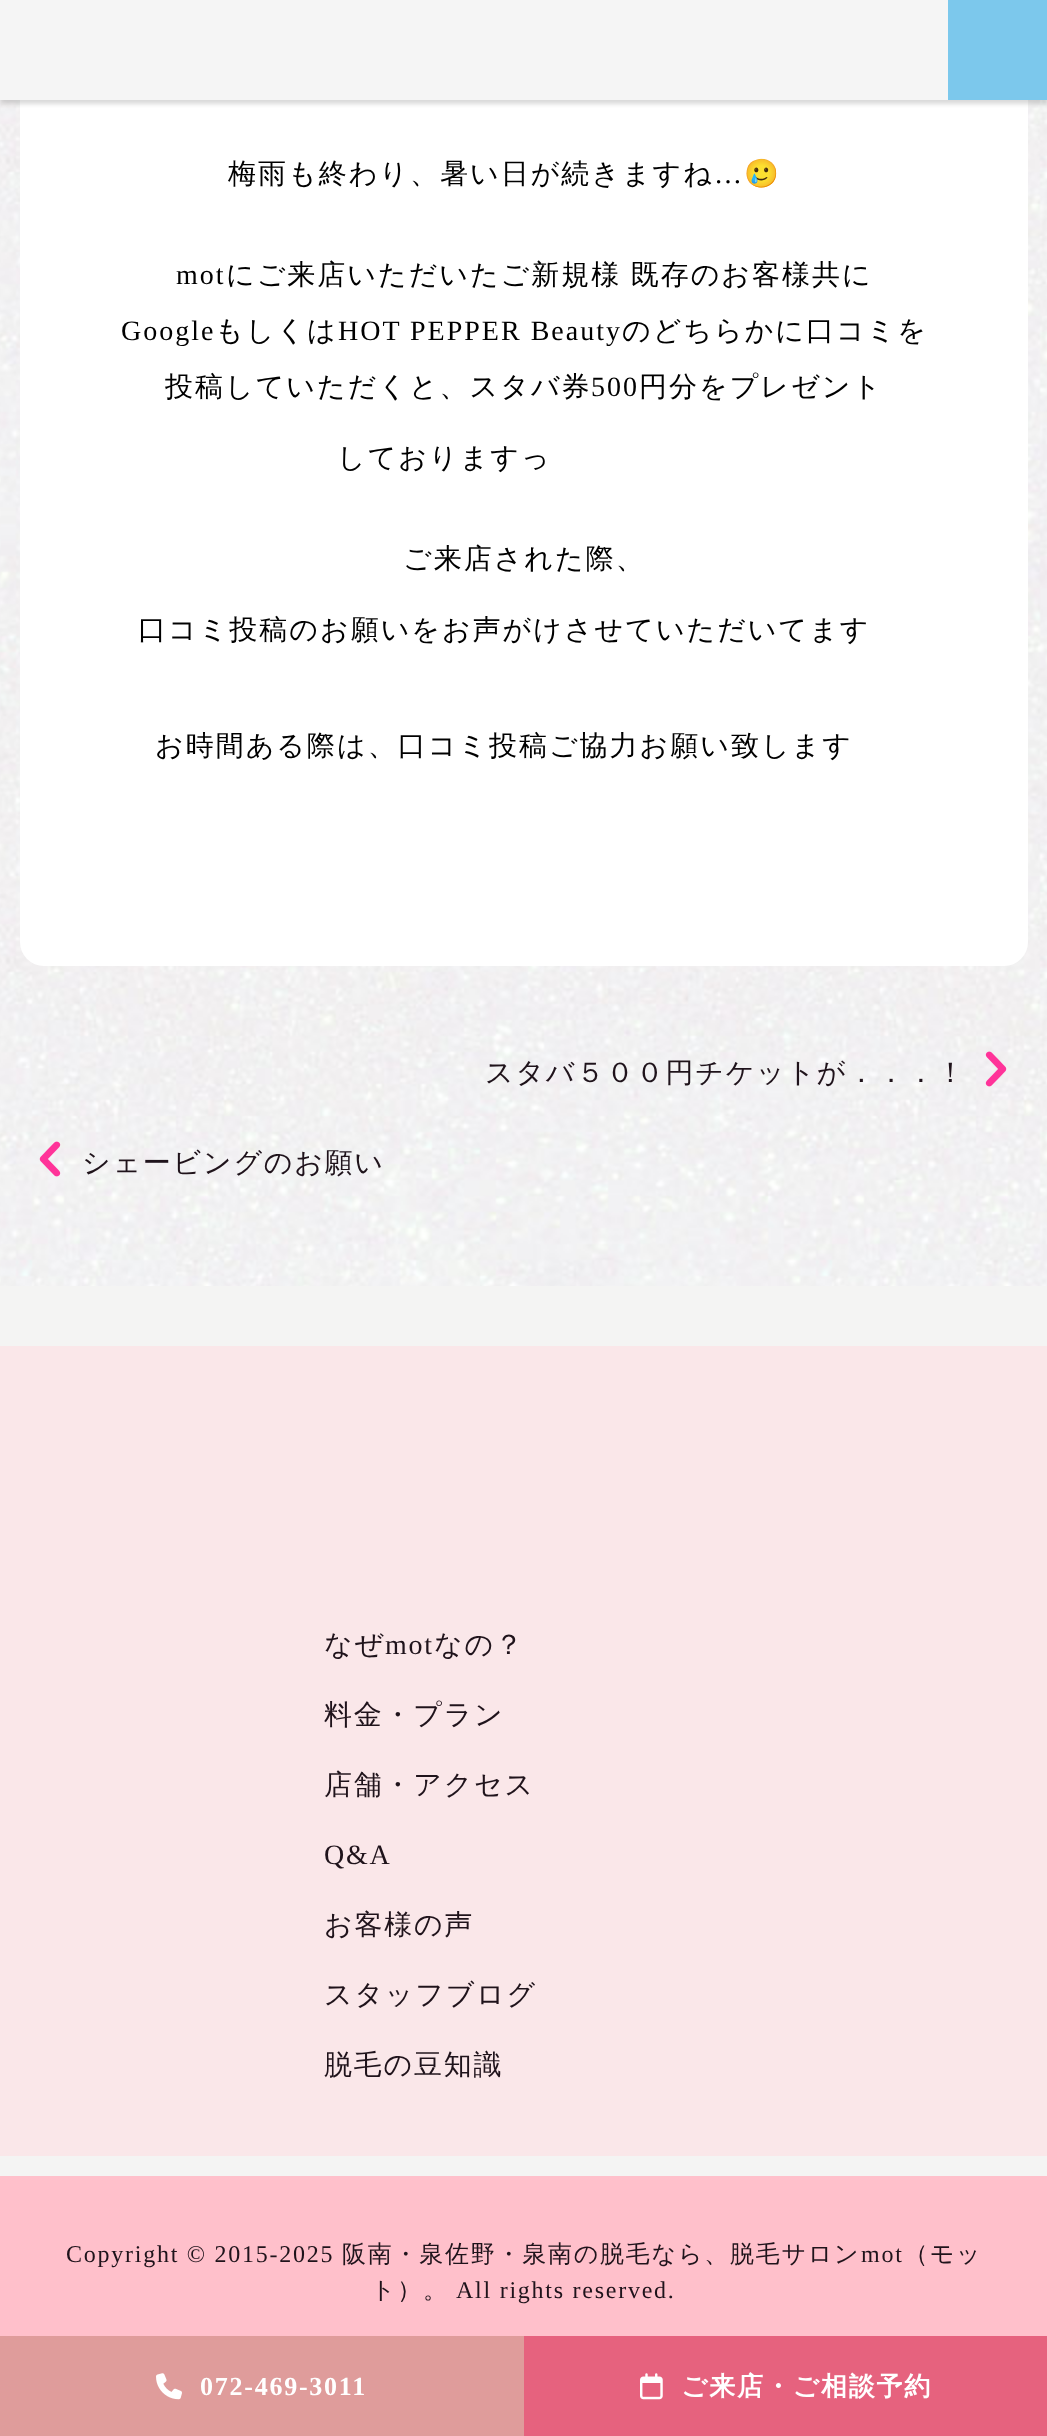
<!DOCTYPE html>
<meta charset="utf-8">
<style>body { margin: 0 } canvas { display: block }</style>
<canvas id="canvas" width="1047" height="2436"></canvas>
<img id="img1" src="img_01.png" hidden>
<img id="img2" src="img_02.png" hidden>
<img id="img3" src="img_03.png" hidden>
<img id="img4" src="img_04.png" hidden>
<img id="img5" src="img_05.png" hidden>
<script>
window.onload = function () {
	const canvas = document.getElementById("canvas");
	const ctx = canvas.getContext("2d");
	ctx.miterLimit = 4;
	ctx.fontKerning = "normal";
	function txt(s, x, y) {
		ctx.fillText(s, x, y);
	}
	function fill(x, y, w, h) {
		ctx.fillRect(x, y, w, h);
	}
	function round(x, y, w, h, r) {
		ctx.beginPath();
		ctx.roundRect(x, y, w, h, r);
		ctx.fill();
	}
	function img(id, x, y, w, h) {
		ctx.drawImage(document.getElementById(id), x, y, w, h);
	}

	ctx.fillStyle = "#F4F4F3";
	fill(0, 0, 1047, 2436);
	img("img1", 0, 100, 1047, 1186);
	ctx.fillStyle = "#FFFFFF";
	round(20, -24, 1008, 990, 24);
	ctx.fillStyle = "rgba(0, 0, 0, 0.15)";
	ctx.filter = "blur(2px)";
	ctx.beginPath();
	ctx.rect(0, 4, 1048, 100);
	ctx.fill();
	ctx.filter = "none";
	ctx.fillStyle = "#F5F5F5";
	fill(0, 0, 948, 100);
	ctx.fillStyle = "#7CC8EC";
	fill(948, 0, 99, 100);
	img("img2", 985, 1051, 22, 36);
	img("img3", 39, 1141, 22, 36);
	ctx.fillStyle = "#DF9C9B";
	fill(0, 2336, 524, 100);
	img("img4", 156, 2373, 26, 27);
	ctx.fillStyle = "#E6627E";
	fill(524, 2336, 523, 100);
	img("img5", 640, 2373, 23, 27);
	ctx.fillStyle = "#FAE7E9";
	fill(0, 1346, 1047, 810);
	ctx.fillStyle = "#FFC0CB";
	fill(0, 2176, 1047, 160);
	ctx.letterSpacing = "2px";
	ctx.font = "500 28px WenQuanYi Zen Hei";
	ctx.fillStyle = "#000000";
	txt("梅雨も終わり、暑い日が続きますね", 228, 183);
	ctx.font = "28px Liberation Serif";
	txt("…", 714, 183);
	ctx.font = "28px Noto Color Emoji";
	txt("🥲", 744, 183);
	ctx.font = "28px Liberation Serif";
	txt("mot", 176, 284);
	ctx.wordSpacing = "-1px";
	ctx.font = "500 28px WenQuanYi Zen Hei";
	txt("にご来店いただいたご新規様 既存のお客様共に", 226, 284);
	ctx.wordSpacing = "0px";
	ctx.font = "28px Liberation Serif";
	txt("Google", 121, 340);
	ctx.font = "500 28px WenQuanYi Zen Hei";
	txt("もしくは", 215, 340);
	ctx.font = "28px Liberation Serif";
	txt("HOT PEPPER Beauty", 338, 340);
	ctx.font = "500 28px WenQuanYi Zen Hei";
	txt("のどちらかに口コミを", 622, 340);
	txt("投稿していただくと、スタバ券", 165, 396);
	ctx.font = "28px Liberation Serif";
	txt("500", 591, 396);
	ctx.font = "500 28px WenQuanYi Zen Hei";
	txt("円分をプレゼント", 639, 396);
	txt("しておりますっ", 337, 467);
	txt("ご来店された際、", 403, 568);
	txt("口コミ投稿のお願いをお声がけさせていただいてます", 138, 639);
	txt("お時間ある際は、口コミ投稿ご協力お願い致します", 155, 755);
	ctx.letterSpacing = "1.75px";
	ctx.fillStyle = "#1F131B";
	txt("スタバ５００円チケットが．．．！", 485, 1082);
	txt("シェービングのお願い", 82, 1172);
	ctx.font = "bold 26px Liberation Serif";
	ctx.fillStyle = "#FFFFFF";
	txt("072-469-3011", 200, 2395);
	ctx.font = "bold 26px WenQuanYi Zen Hei";
	txt("ご来店・ご相談予約", 681, 2395);
	ctx.font = "500 28px WenQuanYi Zen Hei";
	ctx.fillStyle = "#1F131B";
	txt("なぜ", 324, 1654);
	ctx.font = "28px Liberation Serif";
	txt("mot", 385, 1654);
	ctx.font = "500 28px WenQuanYi Zen Hei";
	txt("なの？", 434, 1654);
	txt("料金・プラン", 324, 1724);
	txt("店舗・アクセス", 324, 1794);
	ctx.font = "28px Liberation Serif";
	txt("Q&A", 324, 1864);
	ctx.font = "500 28px WenQuanYi Zen Hei";
	txt("お客様の声", 324, 1934);
	txt("スタッフブログ", 324, 2004);
	txt("脱毛の豆知識", 324, 2074);
	ctx.font = "24px Liberation Serif";
	txt("Copyright © 2015-2025", 66, 2262);
	ctx.font = "500 24px WenQuanYi Zen Hei";
	txt("阪南・泉佐野・泉南の脱毛なら、脱毛サロン", 342, 2262);
	ctx.font = "24px Liberation Serif";
	txt("mot", 861, 2262);
	ctx.font = "500 24px WenQuanYi Zen Hei";
	txt("（モッ", 904, 2262);
	txt("ト）。", 371, 2298);
	ctx.font = "24px Liberation Serif";
	txt("All rights reserved.", 456, 2298);
};
</script>
